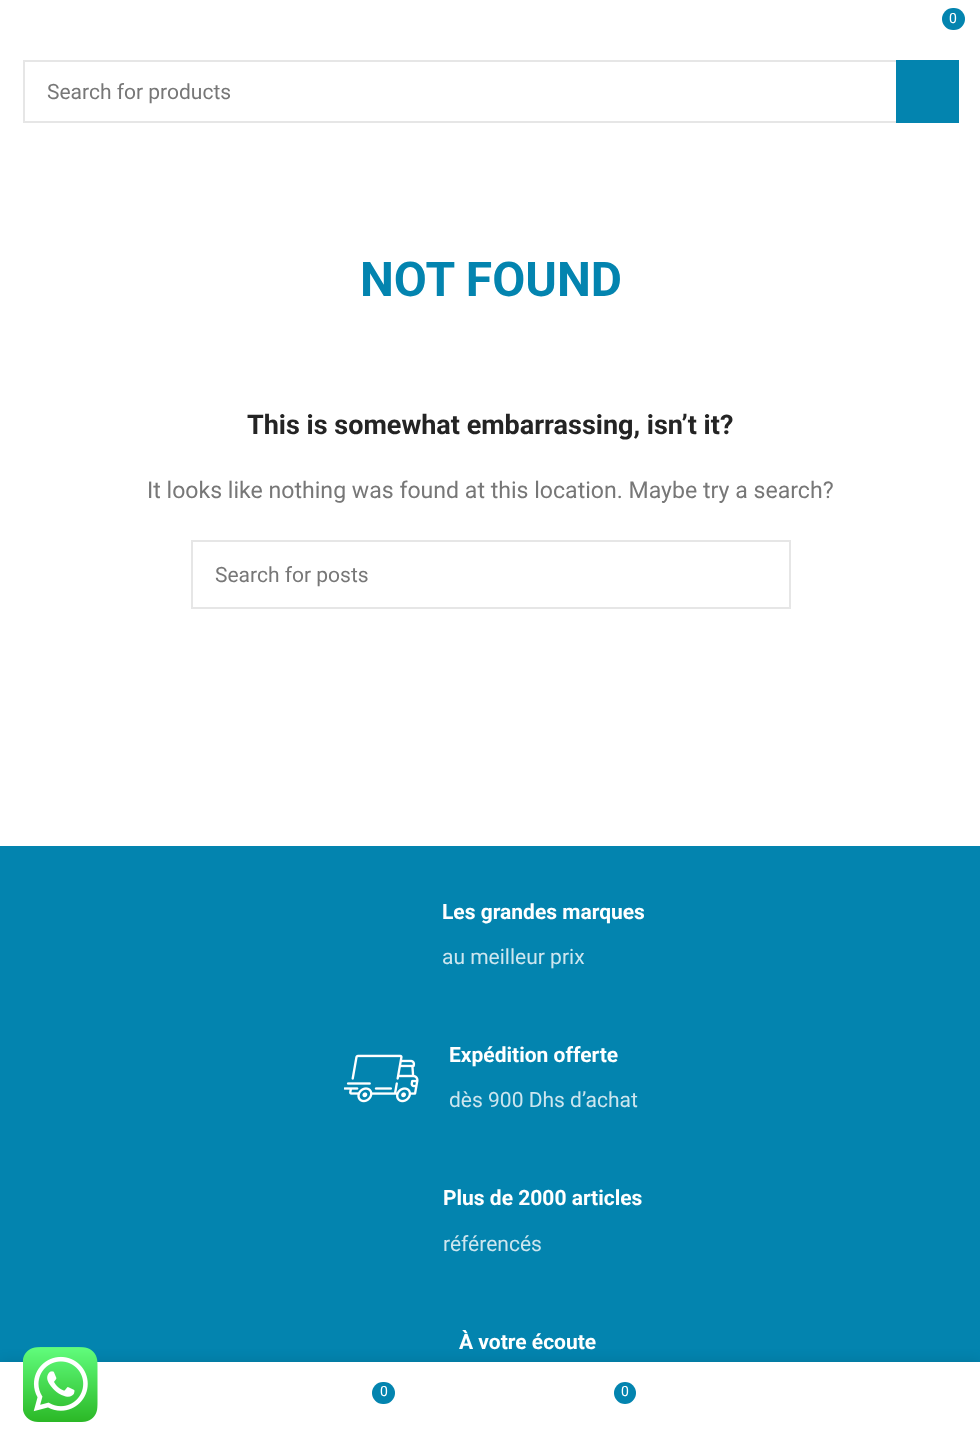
<!DOCTYPE html>
<meta charset="utf-8">
<style>body { margin: 0 } canvas { display: block }</style>
<canvas id="canvas" width="980" height="1444"></canvas>
<img id="img1" src="img_01.png" hidden>
<img id="img2" src="img_02.png" hidden>
<script>
window.onload = function () {
	const canvas = document.getElementById("canvas");
	const ctx = canvas.getContext("2d");
	ctx.miterLimit = 4;
	ctx.fontKerning = "normal";
	function txt(s, x, y) {
		ctx.fillText(s, x, y);
	}
	function fill(x, y, w, h) {
		ctx.fillRect(x, y, w, h);
	}
	function round(x, y, w, h, r) {
		ctx.beginPath();
		ctx.roundRect(x, y, w, h, r);
		ctx.fill();
	}
	function img(id, x, y, w, h) {
		ctx.drawImage(document.getElementById(id), x, y, w, h);
	}

	ctx.fillStyle = "#FFFFFF";
	fill(0, 0, 980, 1444);
	ctx.fillStyle = "#0384AF";
	round(942, 8, 23, 22, 11);
	ctx.strokeStyle = "#E6E6E6";
	ctx.lineWidth = 2;
	ctx.strokeRect(24, 61, 934, 61);
	fill(896, 60, 63, 63);
	ctx.strokeRect(192, 541, 598, 67);
	fill(0, 846, 980, 516);
	img("img1", 344, 1054, 75, 49);
	ctx.fillStyle = "rgba(0, 0, 0, 0.12)";
	ctx.filter = "blur(7px)";
	ctx.beginPath();
	ctx.rect(0, 1362, 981, 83);
	ctx.fill();
	ctx.filter = "none";
	ctx.fillStyle = "#FFFFFF";
	fill(0, 1362, 980, 82);
	img("img2", 23, 1347, 75, 75);
	ctx.fillStyle = "#0384AF";
	round(372, 1382, 23, 22, 11);
	ctx.beginPath();
	ctx.arc(625, 1393, 11, 0, Math.PI * 2);
	ctx.fill();
	ctx.font = "14px Roboto";
	ctx.fillStyle = "#FFFFFF";
	txt("0", 949, 23);
	ctx.font = "21px Roboto";
	ctx.fillStyle = "#777777";
	txt("Search for products", 47, 99);
	ctx.font = "bold 48px Roboto";
	ctx.fillStyle = "#0384AF";
	txt("NOT FOUND", 360, 296);
	ctx.font = "bold 27px Roboto";
	ctx.fillStyle = "#242424";
	txt("This is somewhat embarrassing, isn’t it?", 247, 434);
	ctx.font = "23.1px Roboto";
	ctx.fillStyle = "#777777";
	txt("It looks like nothing was found at this location. Maybe try a search?", 147, 498);
	ctx.font = "21px Roboto";
	txt("Search for posts", 215, 582);
	ctx.font = "bold 21px Roboto";
	ctx.fillStyle = "#FFFFFF";
	txt("Les grandes marques", 442, 919);
	ctx.font = "21px Roboto";
	ctx.fillStyle = "#CDE6EF";
	txt("au meilleur prix", 442, 964);
	ctx.font = "bold 21px Roboto";
	ctx.fillStyle = "#FFFFFF";
	txt("Expédition offerte", 449, 1062);
	ctx.font = "21px Roboto";
	ctx.fillStyle = "#CDE6EF";
	txt("dès 900 Dhs d’achat", 449, 1107);
	ctx.font = "bold 21px Roboto";
	ctx.fillStyle = "#FFFFFF";
	txt("Plus de 2000 articles", 443, 1205);
	ctx.font = "21px Roboto";
	ctx.fillStyle = "#CDE6EF";
	txt("référencés", 443, 1251);
	ctx.font = "bold 21px Roboto";
	ctx.fillStyle = "#FFFFFF";
	txt("À votre écoute", 459, 1349);
	ctx.font = "14px Roboto";
	txt("0", 380, 1396);
	txt("0", 621, 1396);
};
</script>
